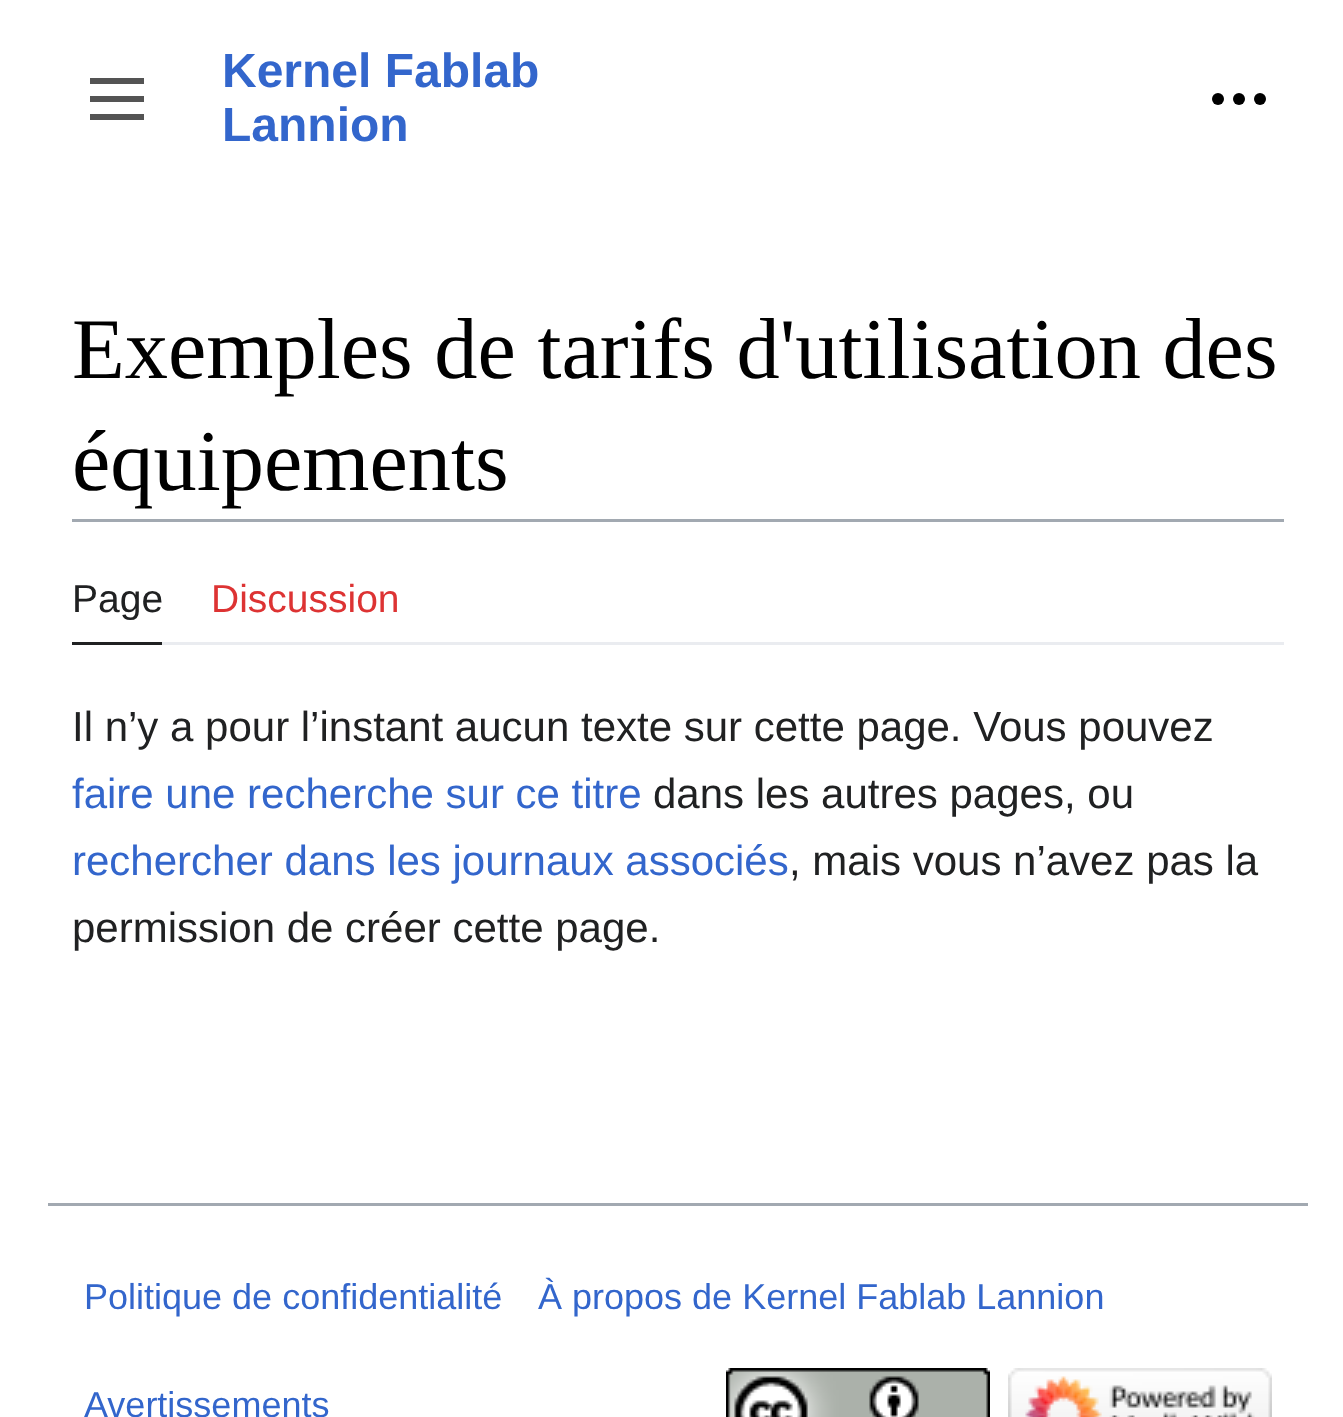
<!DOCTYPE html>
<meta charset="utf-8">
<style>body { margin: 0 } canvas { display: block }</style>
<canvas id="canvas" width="1343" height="1417"></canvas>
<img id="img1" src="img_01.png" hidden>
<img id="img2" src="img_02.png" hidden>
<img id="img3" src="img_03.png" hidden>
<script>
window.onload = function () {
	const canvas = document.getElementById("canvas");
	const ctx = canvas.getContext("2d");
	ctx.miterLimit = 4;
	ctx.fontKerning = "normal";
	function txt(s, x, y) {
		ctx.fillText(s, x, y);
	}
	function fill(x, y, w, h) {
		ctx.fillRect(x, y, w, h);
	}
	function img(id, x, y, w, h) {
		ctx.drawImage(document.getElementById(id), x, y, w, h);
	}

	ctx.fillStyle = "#FFFFFF";
	fill(0, 0, 1343, 1417);
	ctx.fillStyle = "#545454";
	ctx.beginPath();
	ctx.moveTo(90, 78);
	ctx.lineTo(90, 84);
	ctx.lineTo(144, 84);
	ctx.lineTo(144, 78);
	ctx.closePath();
	ctx.moveTo(90, 102);
	ctx.lineTo(144, 102);
	ctx.lineTo(144, 96);
	ctx.lineTo(90, 96);
	ctx.closePath();
	ctx.moveTo(90, 120);
	ctx.lineTo(144, 120);
	ctx.lineTo(144, 114);
	ctx.lineTo(90, 114);
	ctx.closePath();
	ctx.fill();
	img("img1", 1212, 93, 54, 12);
	ctx.fillStyle = "#A2A9B1";
	fill(72, 519, 1212, 3);
	ctx.fillStyle = "#EAECF0";
	fill(162, 642, 1122, 3);
	ctx.fillStyle = "#202122";
	fill(72, 642, 90, 3);
	ctx.fillStyle = "#A2A9B1";
	fill(48, 1203, 1260, 3);
	img("img2", 726, 1368, 264, 49);
	img("img3", 1008, 1368, 264, 49);
	ctx.font = "bold 48px Liberation Sans";
	ctx.fillStyle = "#3366CC";
	txt("Kernel Fablab", 222, 87);
	txt("Lannion", 222, 141);
	ctx.font = "86.4px Liberation Serif";
	ctx.fillStyle = "#000000";
	txt("Exemples de tarifs d'utilisation des", 72, 378);
	txt("équipements", 72, 490);
	ctx.font = "39px Liberation Sans";
	ctx.fillStyle = "#202122";
	txt("Page", 72, 612);
	ctx.fillStyle = "#DD3333";
	txt("Discussion", 211, 612);
	ctx.font = "42px Liberation Sans";
	ctx.fillStyle = "#202122";
	txt("Il n’y a pour l’instant aucun texte sur cette page. Vous pouvez", 72, 741);
	ctx.fillStyle = "#3366CC";
	txt("faire une recherche sur ce titre", 72, 808);
	ctx.fillStyle = "#202122";
	txt("dans les autres pages, ou", 653, 808);
	ctx.fillStyle = "#3366CC";
	txt("rechercher dans les journaux associés", 72, 875);
	ctx.fillStyle = "#202122";
	txt(", mais vous n’avez pas la", 789, 875);
	txt("permission de créer cette page.", 72, 942);
	ctx.font = "36px Liberation Sans";
	ctx.fillStyle = "#3366CC";
	txt("Politique de confidentialité", 84, 1309);
	txt("À propos de Kernel Fablab Lannion", 538, 1309);
	txt("Avertissements", 84, 1417);
};
</script>
